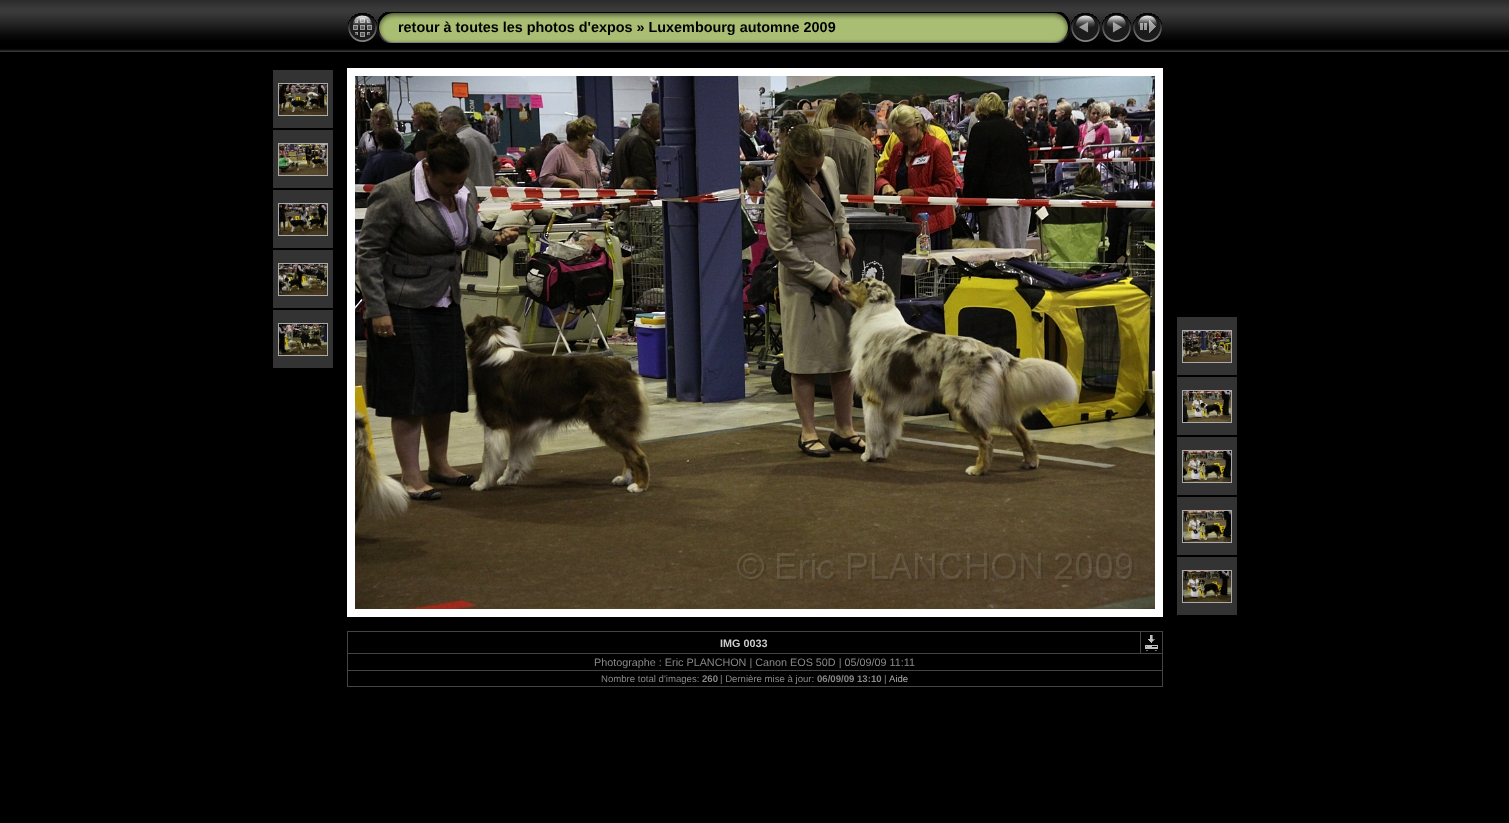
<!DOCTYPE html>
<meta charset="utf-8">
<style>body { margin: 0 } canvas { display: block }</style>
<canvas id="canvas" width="1509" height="823"></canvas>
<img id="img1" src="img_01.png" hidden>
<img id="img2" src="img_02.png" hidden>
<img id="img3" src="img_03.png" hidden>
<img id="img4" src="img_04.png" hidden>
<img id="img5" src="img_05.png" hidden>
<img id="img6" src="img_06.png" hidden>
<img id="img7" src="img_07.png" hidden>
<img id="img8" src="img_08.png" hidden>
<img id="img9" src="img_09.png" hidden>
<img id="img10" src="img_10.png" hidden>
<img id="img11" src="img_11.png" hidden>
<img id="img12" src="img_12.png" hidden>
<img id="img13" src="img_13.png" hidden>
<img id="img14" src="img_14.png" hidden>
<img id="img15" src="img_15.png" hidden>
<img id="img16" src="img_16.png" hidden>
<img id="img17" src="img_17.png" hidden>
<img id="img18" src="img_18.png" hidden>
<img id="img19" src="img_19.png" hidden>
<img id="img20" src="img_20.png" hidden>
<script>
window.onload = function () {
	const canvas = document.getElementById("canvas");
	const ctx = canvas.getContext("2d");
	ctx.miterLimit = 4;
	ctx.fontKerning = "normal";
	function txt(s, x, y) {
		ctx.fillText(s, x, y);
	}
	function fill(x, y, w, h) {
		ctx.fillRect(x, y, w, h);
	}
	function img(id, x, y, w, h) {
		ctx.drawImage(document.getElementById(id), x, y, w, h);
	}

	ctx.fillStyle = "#000000";
	fill(0, 0, 1509, 823);
	img("img1", 0, 0, 1509, 52);
	img("img2", 348, 13, 29, 29);
	img("img3", 378, 12, 20, 31);
	img("img4", 398, 12, 652, 31);
	img("img5", 1050, 12, 20, 31);
	img("img6", 1071, 13, 29, 29);
	img("img7", 1102, 13, 29, 29);
	img("img8", 1133, 13, 29, 29);
	ctx.fillStyle = "#333333";
	fill(273, 70, 60, 58);
	ctx.strokeStyle = "#AAAAAA";
	ctx.strokeRect(278.5, 83.5, 49, 32);
	img("img9", 279, 84, 48, 31);
	fill(273, 130, 60, 58);
	ctx.strokeRect(278.5, 143.5, 49, 32);
	img("img10", 279, 144, 48, 31);
	fill(273, 190, 60, 58);
	ctx.strokeRect(278.5, 203.5, 49, 32);
	img("img11", 279, 204, 48, 31);
	fill(273, 250, 60, 58);
	ctx.strokeRect(278.5, 263.5, 49, 32);
	img("img12", 279, 264, 48, 31);
	fill(273, 310, 60, 58);
	ctx.strokeRect(278.5, 323.5, 49, 32);
	img("img13", 279, 324, 48, 31);
	ctx.strokeStyle = "#FFFFFF";
	ctx.lineWidth = 8;
	ctx.strokeRect(351, 72, 808, 541);
	img("img14", 355, 76, 800, 533);
	fill(1177, 317, 60, 58);
	ctx.strokeStyle = "#AAAAAA";
	ctx.lineWidth = 1;
	ctx.strokeRect(1182.5, 330.5, 49, 32);
	img("img15", 1183, 331, 48, 31);
	fill(1177, 377, 60, 58);
	ctx.strokeRect(1182.5, 390.5, 49, 32);
	img("img16", 1183, 391, 48, 31);
	fill(1177, 437, 60, 58);
	ctx.strokeRect(1182.5, 450.5, 49, 32);
	img("img17", 1183, 451, 48, 31);
	fill(1177, 497, 60, 58);
	ctx.strokeRect(1182.5, 510.5, 49, 32);
	img("img18", 1183, 511, 48, 31);
	fill(1177, 557, 60, 58);
	ctx.strokeRect(1182.5, 570.5, 49, 32);
	img("img19", 1183, 571, 48, 31);
	ctx.fillStyle = "#444444";
	fill(347, 631, 816, 1);
	fill(1162, 631, 1, 56);
	fill(347, 686, 816, 1);
	fill(347, 631, 1, 56);
	fill(347, 653, 816, 1);
	fill(1140, 631, 1, 23);
	img("img20", 1145, 635, 13, 16);
	fill(347, 670, 816, 1);
	ctx.font = "bold 14.4px Liberation Sans";
	ctx.fillStyle = "#000000";
	txt("retour à toutes les photos d'expos » Luxembourg automne 2009", 398, 32);
	ctx.font = "bold 10.8px Liberation Sans";
	ctx.fillStyle = "#CCCCCC";
	txt("IMG 0033", 720, 647);
	ctx.font = "10.8px Liberation Sans";
	ctx.fillStyle = "#888888";
	txt("Photographe : Eric PLANCHON | Canon EOS 50D | 05/09/09 11:11", 594, 666);
	ctx.font = "9.6px Liberation Sans";
	txt("Nombre total d'images:", 601, 682);
	ctx.font = "bold 9.6px Liberation Sans";
	txt("260", 702, 682);
	ctx.font = "9.6px Liberation Sans";
	txt("| Dernière mise à jour:", 720, 682);
	ctx.font = "bold 9.6px Liberation Sans";
	txt("06/09/09 13:10", 817, 682);
	ctx.font = "9.6px Liberation Sans";
	txt("|", 884, 682);
	ctx.fillStyle = "#AAAAAA";
	txt("Aide", 889, 682);
};
</script>
